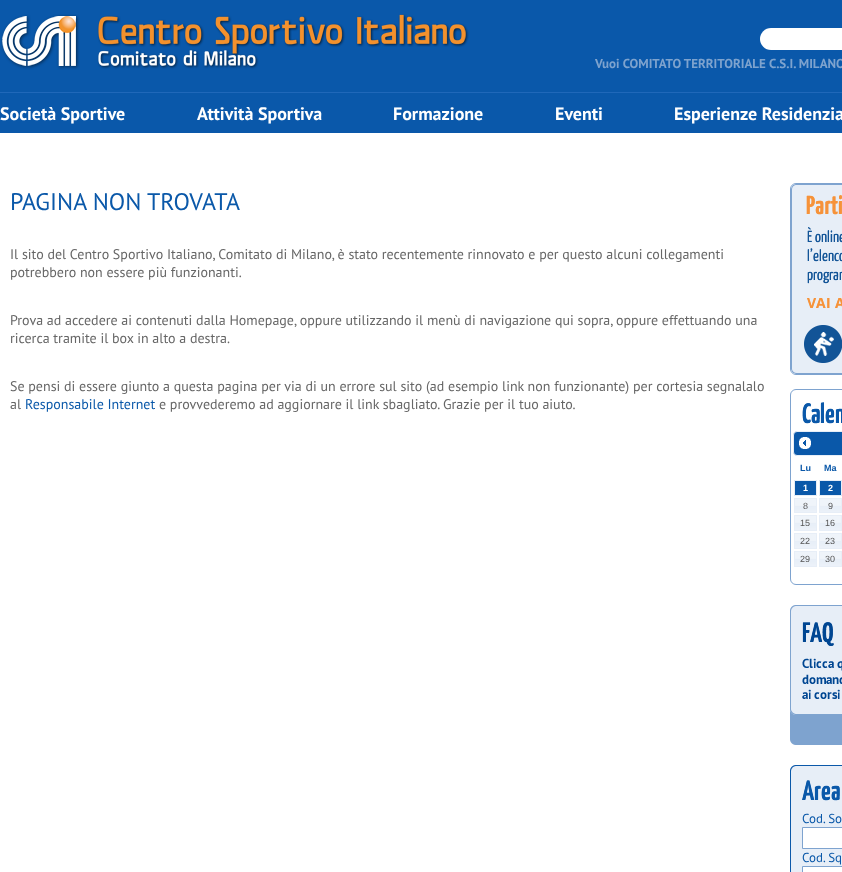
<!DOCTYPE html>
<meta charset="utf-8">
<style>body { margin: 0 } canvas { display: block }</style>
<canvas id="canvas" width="842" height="872"></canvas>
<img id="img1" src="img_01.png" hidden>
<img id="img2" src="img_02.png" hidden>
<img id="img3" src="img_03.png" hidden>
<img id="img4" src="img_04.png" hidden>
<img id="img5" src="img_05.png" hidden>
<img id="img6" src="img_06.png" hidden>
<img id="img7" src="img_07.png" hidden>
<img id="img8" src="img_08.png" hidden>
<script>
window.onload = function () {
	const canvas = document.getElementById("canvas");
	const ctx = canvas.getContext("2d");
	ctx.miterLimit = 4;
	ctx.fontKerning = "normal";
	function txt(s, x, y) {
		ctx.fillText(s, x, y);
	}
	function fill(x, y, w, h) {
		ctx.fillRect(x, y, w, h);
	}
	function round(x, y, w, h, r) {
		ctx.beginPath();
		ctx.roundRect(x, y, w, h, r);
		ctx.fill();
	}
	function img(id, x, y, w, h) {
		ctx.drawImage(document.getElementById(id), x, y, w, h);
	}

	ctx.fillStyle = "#0A58AA";
	fill(0, 0, 842, 872);
	img("img1", 1, 14, 468, 56);
	ctx.fillStyle = "#2068B9";
	fill(0, 92, 842, 1);
	ctx.fillStyle = "#FFFFFF";
	round(760, 28, 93, 22, 11);
	fill(0, 133, 842, 739);
	ctx.beginPath();
	ctx.roundRect(790.5, 183.5, 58, 191, 5.5);
	ctx.strokeStyle = "#7EA3CF";
	ctx.stroke();
	img("img2", 791, 184, 51, 190);
	ctx.beginPath();
	ctx.roundRect(790.5, 389.5, 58, 195, 5.5);
	ctx.stroke();
	img("img3", 802, 402, 40, 22);
	ctx.fillStyle = "#0A58A9";
	ctx.beginPath();
	ctx.roundRect(793.5, 431.5, 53, 24, 3.5);
	ctx.fill();
	ctx.strokeStyle = "#E7EEF7";
	ctx.stroke();
	img("img4", 799, 437, 12, 12);
	ctx.beginPath();
	ctx.rect(794.5, 480.5, 22, 15);
	ctx.fill();
	ctx.stroke();
	ctx.beginPath();
	ctx.rect(819.5, 480.5, 22, 15);
	ctx.fill();
	ctx.stroke();
	img("img5", 795, 499, 21, 13);
	ctx.strokeRect(794.5, 498.5, 22, 14);
	img("img5", 820, 499, 21, 13);
	ctx.strokeRect(819.5, 498.5, 22, 14);
	img("img6", 795, 516, 21, 14);
	ctx.strokeRect(794.5, 515.5, 22, 15);
	img("img6", 820, 516, 21, 14);
	ctx.strokeRect(819.5, 515.5, 22, 15);
	img("img6", 795, 534, 21, 14);
	ctx.strokeRect(794.5, 533.5, 22, 15);
	img("img6", 820, 534, 21, 14);
	ctx.strokeRect(819.5, 533.5, 22, 15);
	img("img6", 795, 552, 21, 14);
	ctx.strokeRect(794.5, 551.5, 22, 15);
	img("img6", 820, 552, 21, 14);
	ctx.strokeRect(819.5, 551.5, 22, 15);
	img("img7", 790, 605, 52, 140);
	img("img8", 790, 765, 52, 107);
	ctx.fillStyle = "#FFFFFF";
	ctx.beginPath();
	ctx.rect(802.5, 827.5, 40, 21);
	ctx.fill();
	ctx.strokeStyle = "#7EA3CF";
	ctx.stroke();
	ctx.beginPath();
	ctx.rect(802.5, 866.5, 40, 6);
	ctx.fill();
	ctx.stroke();
	ctx.font = "bold 13px PT Sans";
	ctx.fillStyle = "#7EA3CE";
	txt("Vuoi COMITATO TERRITORIALE C.S.I. MILANO", 595, 68);
	ctx.font = "bold 18px PT Sans";
	ctx.fillStyle = "#FFFFFF";
	txt("Società Sportive", 0, 120);
	txt("Attività Sportiva", 197, 120);
	txt("Formazione", 393, 120);
	txt("Eventi", 555, 120);
	txt("Esperienze Residenzia", 674, 120);
	ctx.font = "24px PT Sans";
	ctx.fillStyle = "#0A58A9";
	txt("PAGINA NON TROVATA", 10, 210);
	ctx.font = "14px PT Sans";
	ctx.fillStyle = "#666666";
	txt("Il sito del Centro Sportivo Italiano, Comitato di Milano, è stato recentemente rinnovato e per questo alcuni collegamenti", 10, 259);
	txt("potrebbero non essere più funzionanti.", 10, 277);
	txt("Prova ad accedere ai contenuti dalla Homepage, oppure utilizzando il menù di navigazione qui sopra, oppure effettuando una", 10, 325);
	txt("ricerca tramite il box in alto a destra.", 10, 343);
	txt("Se pensi di essere giunto a questa pagina per via di un errore sul sito (ad esempio link non funzionante) per cortesia segnalalo", 10, 391);
	txt("al", 10, 409);
	ctx.fillStyle = "#0A58A9";
	txt("Responsabile Internet", 25, 409);
	ctx.fillStyle = "#666666";
	txt("e provvederemo ad aggiornare il link sbagliato. Grazie per il tuo aiuto.", 159, 409);
	ctx.font = "bold 9px Liberation Sans";
	ctx.fillStyle = "#0A58A9";
	txt("Lu", 800, 471);
	txt("Ma", 824, 471);
	ctx.fillStyle = "#FFFFFF";
	txt("1", 803, 491);
	txt("2", 828, 491);
	ctx.font = "9px Liberation Sans";
	ctx.fillStyle = "#555555";
	txt("8", 803, 509);
	txt("9", 828, 509);
	txt("15", 800, 526);
	txt("16", 825, 526);
	txt("22", 800, 544);
	txt("23", 825, 544);
	txt("29", 800, 562);
	txt("30", 825, 562);
	ctx.font = "13px PT Sans";
	ctx.fillStyle = "#0A58A9";
	txt("Cod. So", 802, 823);
	txt("Cod. Sq", 802, 862);
};
</script>
